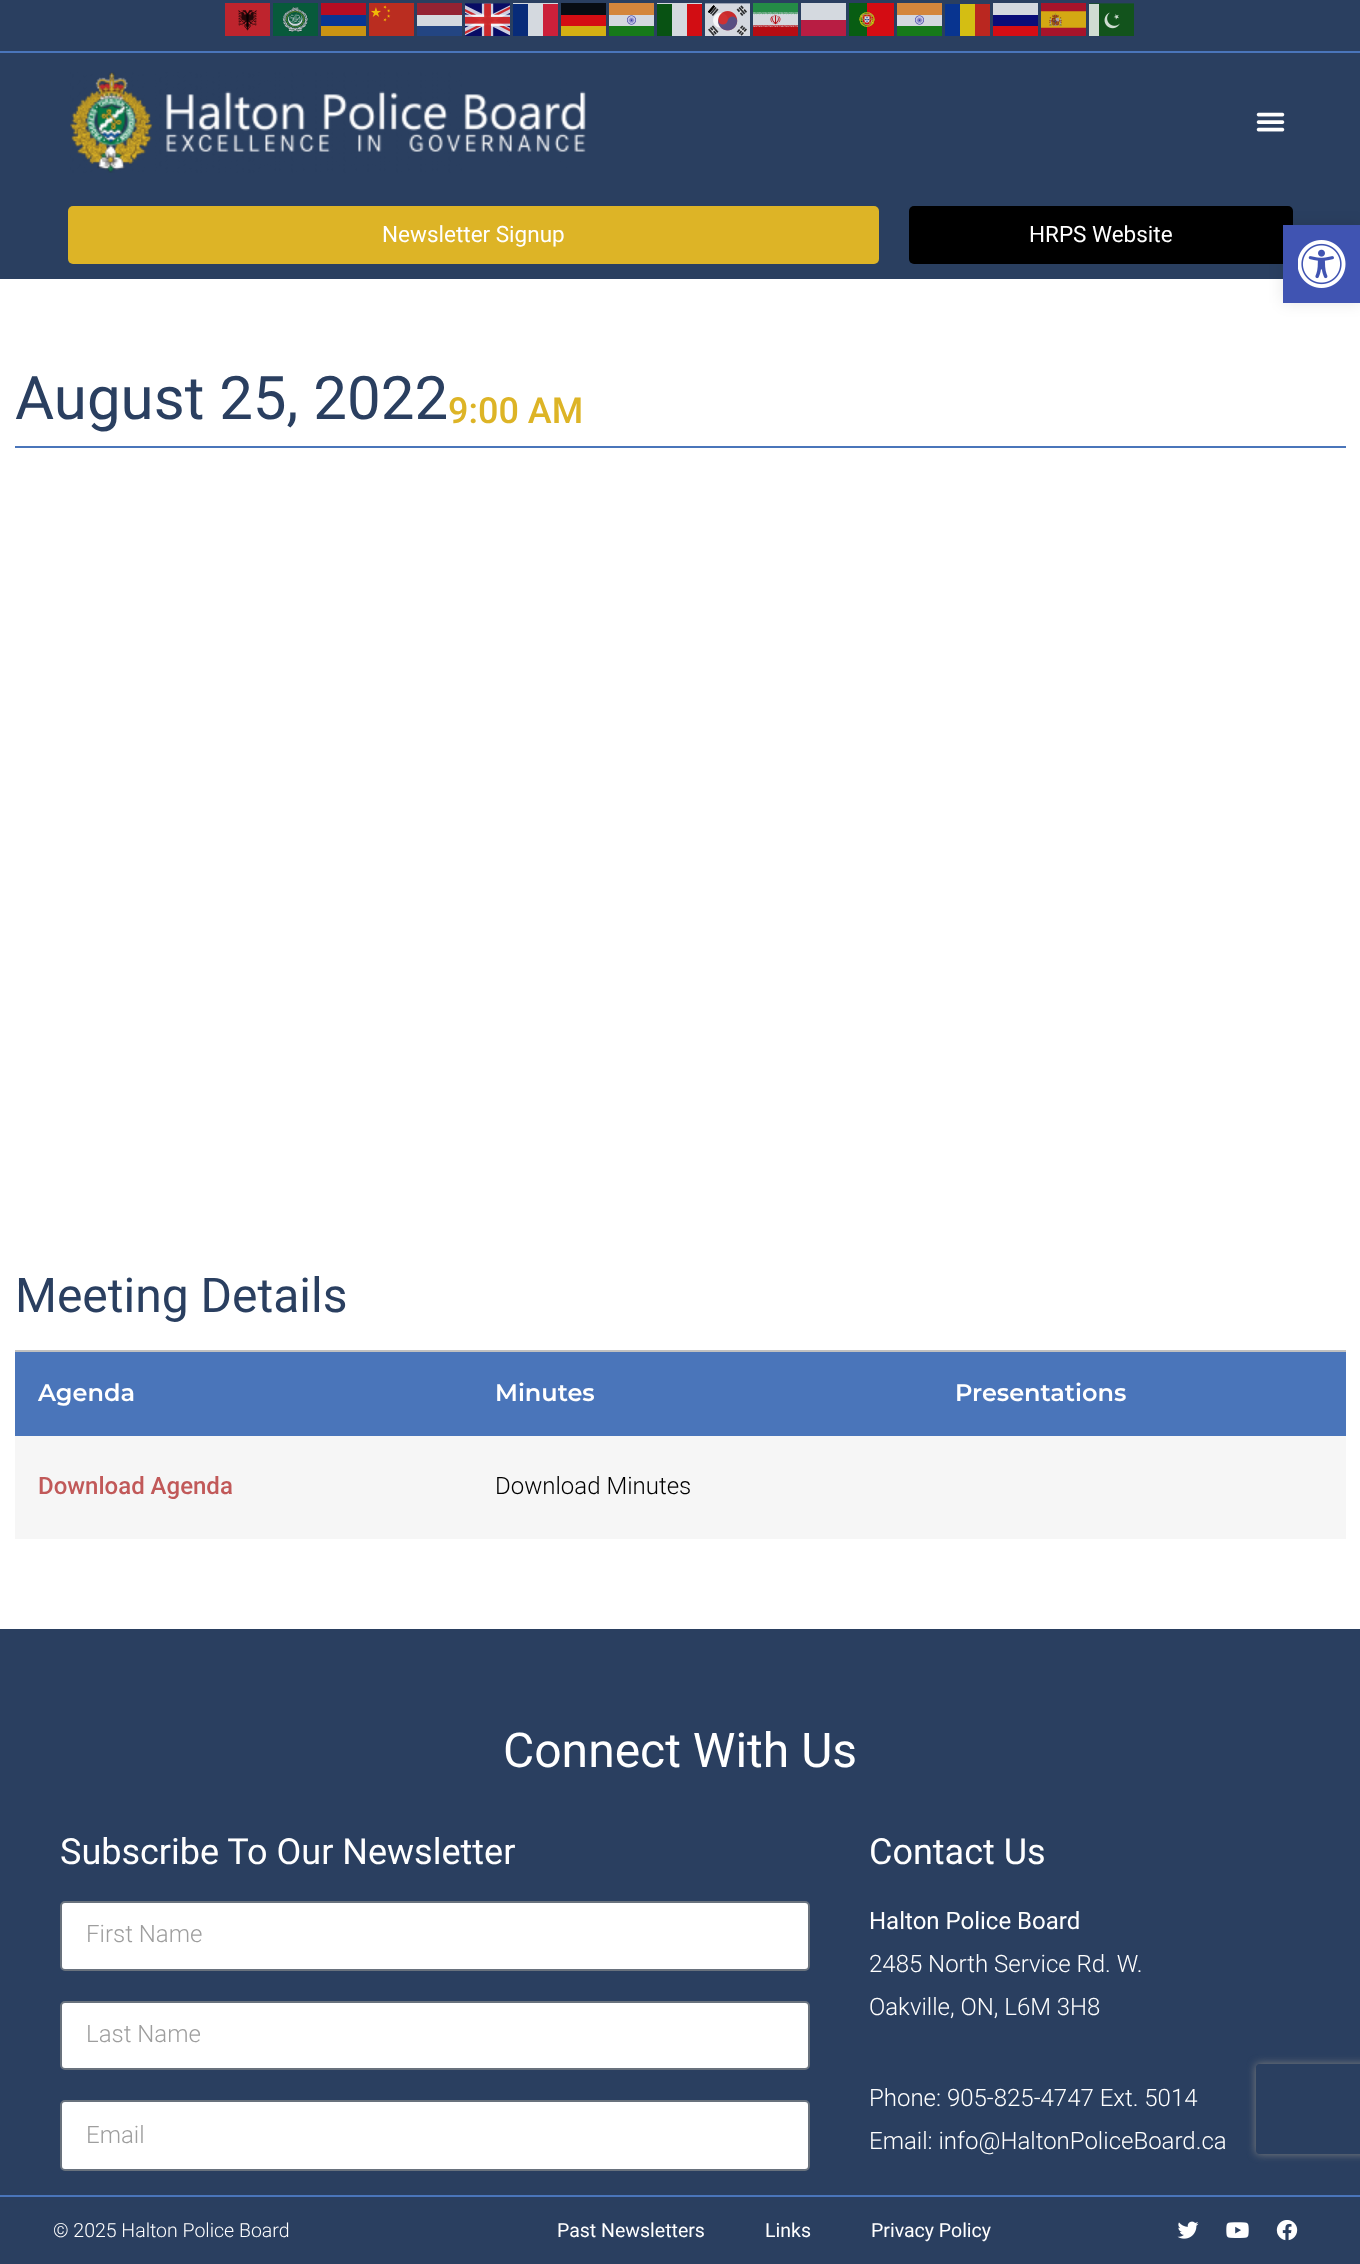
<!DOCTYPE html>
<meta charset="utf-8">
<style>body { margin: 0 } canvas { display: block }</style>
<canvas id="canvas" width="1360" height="2264"></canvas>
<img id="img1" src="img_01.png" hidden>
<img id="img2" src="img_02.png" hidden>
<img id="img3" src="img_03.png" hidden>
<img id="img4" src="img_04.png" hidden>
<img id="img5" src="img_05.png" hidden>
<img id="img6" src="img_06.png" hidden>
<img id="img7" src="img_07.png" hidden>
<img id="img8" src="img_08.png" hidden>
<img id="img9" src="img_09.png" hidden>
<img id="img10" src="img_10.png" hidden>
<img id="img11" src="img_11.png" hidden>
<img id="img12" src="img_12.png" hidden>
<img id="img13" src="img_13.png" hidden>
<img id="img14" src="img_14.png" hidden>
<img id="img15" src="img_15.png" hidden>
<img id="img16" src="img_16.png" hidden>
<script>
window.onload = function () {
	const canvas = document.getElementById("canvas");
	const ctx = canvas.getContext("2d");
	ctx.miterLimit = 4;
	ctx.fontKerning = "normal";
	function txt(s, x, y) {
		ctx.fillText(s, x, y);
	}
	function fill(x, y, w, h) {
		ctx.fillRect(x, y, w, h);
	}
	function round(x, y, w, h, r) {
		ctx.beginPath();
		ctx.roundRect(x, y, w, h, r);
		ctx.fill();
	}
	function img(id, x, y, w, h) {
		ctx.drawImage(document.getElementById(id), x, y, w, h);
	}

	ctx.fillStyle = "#FFFFFF";
	fill(0, 0, 1360, 2264);
	ctx.fillStyle = "#2A3F60";
	fill(0, 0, 1360, 51);
	ctx.fillStyle = "#4A75BA";
	fill(0, 51, 1360, 2);
	img("img1", 225, 3, 45, 33);
	img("img2", 273, 3, 45, 33);
	ctx.fillStyle = "#B60D22";
	fill(321, 3, 45, 12);
	img("img3", 369, 3, 45, 33);
	ctx.fillStyle = "#942333";
	fill(417, 3, 45, 12);
	img("img4", 465, 3, 45, 33);
	ctx.fillStyle = "#D4D9DF";
	fill(513, 3, 45, 33);
	ctx.fillStyle = "#080D13";
	fill(561, 3, 45, 12);
	img("img5", 609, 3, 45, 33);
	ctx.fillStyle = "#D4D9DF";
	fill(657, 3, 45, 33);
	img("img6", 705, 3, 45, 33);
	img("img7", 753, 3, 45, 33);
	fill(801, 3, 45, 17);
	img("img8", 849, 3, 45, 33);
	img("img5", 897, 3, 45, 33);
	fill(993, 3, 45, 12);
	img("img9", 1041, 3, 45, 33);
	img("img10", 1089, 3, 45, 33);
	ctx.fillStyle = "#083593";
	fill(321, 15, 45, 11);
	ctx.fillStyle = "#D4D9DF";
	fill(417, 15, 45, 11);
	ctx.fillStyle = "#082B79";
	fill(513, 4, 15, 32);
	ctx.fillStyle = "#CB203A";
	fill(543, 4, 15, 32);
	ctx.fillStyle = "#D40D13";
	fill(561, 15, 45, 11);
	ctx.fillStyle = "#085213";
	fill(657, 4, 15, 32);
	ctx.fillStyle = "#D20D13";
	fill(687, 4, 15, 32);
	ctx.fillStyle = "#B81D43";
	fill(801, 20, 45, 16);
	ctx.fillStyle = "#083490";
	fill(945, 4, 15, 32);
	ctx.fillStyle = "#D4BE13";
	fill(960, 4, 15, 32);
	ctx.fillStyle = "#BA2720";
	fill(975, 4, 15, 32);
	ctx.fillStyle = "#090D78";
	fill(993, 15, 45, 11);
	ctx.fillStyle = "#CA9313";
	fill(321, 26, 45, 10);
	ctx.fillStyle = "#234582";
	fill(417, 26, 45, 10);
	ctx.fillStyle = "#D4B013";
	fill(561, 26, 45, 10);
	ctx.fillStyle = "#D40D14";
	fill(993, 26, 45, 10);
	ctx.fillStyle = "#2A3F60";
	fill(0, 53, 1360, 226);
	img("img11", 70, 72, 516, 101);
	img("img12", 1256, 112, 29, 20);
	ctx.fillStyle = "#DDB426";
	round(68, 206, 811, 58, 5);
	ctx.fillStyle = "#000000";
	round(909, 206, 384, 58, 5);
	ctx.fillStyle = "rgba(0, 0, 0, 0.1)";
	ctx.filter = "blur(7.5px)";
	ctx.beginPath();
	ctx.rect(1283, 225, 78, 78);
	ctx.fill();
	ctx.filter = "none";
	ctx.fillStyle = "#4054B2";
	fill(1283, 225, 77, 78);
	img("img13", 1298, 240, 48, 48);
	ctx.fillStyle = "#4A75BA";
	fill(15, 446, 1331, 2);
	fill(15, 1352, 1331, 84);
	ctx.fillStyle = "#C0C0C0";
	fill(15, 1350, 1331, 2);
	ctx.fillStyle = "#F6F6F6";
	fill(15, 1436, 1331, 103);
	ctx.fillStyle = "#2A3F60";
	fill(0, 1629, 1360, 566);
	ctx.fillStyle = "#FFFFFF";
	ctx.beginPath();
	ctx.roundRect(61, 1902, 748, 68, 4);
	ctx.fill();
	ctx.strokeStyle = "#69727D";
	ctx.lineWidth = 2;
	ctx.stroke();
	ctx.beginPath();
	ctx.roundRect(61, 2002, 748, 67, 4);
	ctx.fill();
	ctx.stroke();
	ctx.beginPath();
	ctx.roundRect(61, 2101, 748, 69, 4);
	ctx.fill();
	ctx.stroke();
	ctx.save();
	ctx.beginPath();
	ctx.moveTo(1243, 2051);
	ctx.lineTo(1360, 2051);
	ctx.lineTo(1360, 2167);
	ctx.lineTo(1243, 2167);
	ctx.closePath();
	ctx.moveTo(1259, 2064);
	ctx.lineTo(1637, 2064);
	ctx.bezierCurveTo(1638.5, 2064, 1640, 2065.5, 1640, 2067);
	ctx.lineTo(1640, 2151);
	ctx.bezierCurveTo(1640, 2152.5, 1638.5, 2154, 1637, 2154);
	ctx.lineTo(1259, 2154);
	ctx.bezierCurveTo(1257.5, 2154, 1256, 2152.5, 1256, 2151);
	ctx.lineTo(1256, 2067);
	ctx.bezierCurveTo(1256, 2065.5, 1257.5, 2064, 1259, 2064);
	ctx.closePath();
	ctx.clip("evenodd");
	ctx.fillStyle = "#808080";
	ctx.filter = "blur(4px)";
	ctx.beginPath();
	ctx.roundRect(1256, 2064, 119, 90, 3);
	ctx.fill();
	ctx.filter = "none";
	ctx.restore();
	ctx.fillStyle = "#2A3F60";
	fill(0, 2197, 1360, 67);
	ctx.fillStyle = "#4A75BA";
	fill(0, 2195, 1360, 2);
	img("img14", 1177, 2221, 22, 18);
	img("img15", 1226, 2222, 23, 16);
	img("img16", 1276, 2220, 22, 21);
	ctx.font = "22.5px Roboto";
	ctx.fillStyle = "#FFFFFF";
	txt("Newsletter Signup", 382, 242);
	txt("HRPS Website", 1029, 242);
	ctx.font = "60px Roboto";
	ctx.fillStyle = "#2A3F60";
	txt("August 25, 2022", 15, 419);
	ctx.font = "500 36px Roboto";
	ctx.fillStyle = "#DDB426";
	txt("9:00 AM", 448, 423);
	ctx.font = "48px Roboto";
	ctx.fillStyle = "#2A3F60";
	txt("Meeting Details", 15, 1312);
	ctx.font = "600 24px Montserrat";
	ctx.fillStyle = "#FFFFFF";
	txt("Agenda", 38, 1401);
	txt("Minutes", 495, 1401);
	txt("Presentations", 955, 1401);
	ctx.font = "500 24px Roboto";
	ctx.fillStyle = "#C15959";
	txt("Download Agenda", 38, 1494);
	ctx.font = "300 24px Roboto";
	ctx.fillStyle = "#000000";
	txt("Download Minutes", 495, 1494);
	ctx.font = "48px Roboto";
	ctx.fillStyle = "#FFFFFF";
	txt("Connect With Us", 503, 1767);
	ctx.font = "36px Roboto";
	txt("Subscribe To Our Newsletter", 60, 1864);
	ctx.font = "300 24px Roboto";
	ctx.fillStyle = "#9E9E9E";
	txt("First Name", 86, 1942);
	txt("Last Name", 86, 2042);
	txt("Email", 86, 2143);
	ctx.font = "36px Roboto";
	ctx.fillStyle = "#FFFFFF";
	txt("Contact Us", 869, 1864);
	ctx.font = "24px Roboto";
	txt("Halton Police Board", 869, 1929);
	ctx.font = "300 24px Roboto";
	txt("2485 North Service Rd. W.", 869, 1972);
	txt("Oakville, ON, L6M 3H8", 869, 2015);
	txt("Phone: 905-825-4747 Ext. 5014", 869, 2106);
	txt("Email: info@HaltonPoliceBoard.ca", 869, 2149);
	ctx.font = "300 19.5px Roboto";
	txt("© 2025 Halton Police Board", 53, 2237);
	ctx.font = "19.5px Roboto";
	txt("Past Newsletters", 557, 2237);
	txt("Links", 765, 2237);
	txt("Privacy Policy", 871, 2237);
};
</script>
